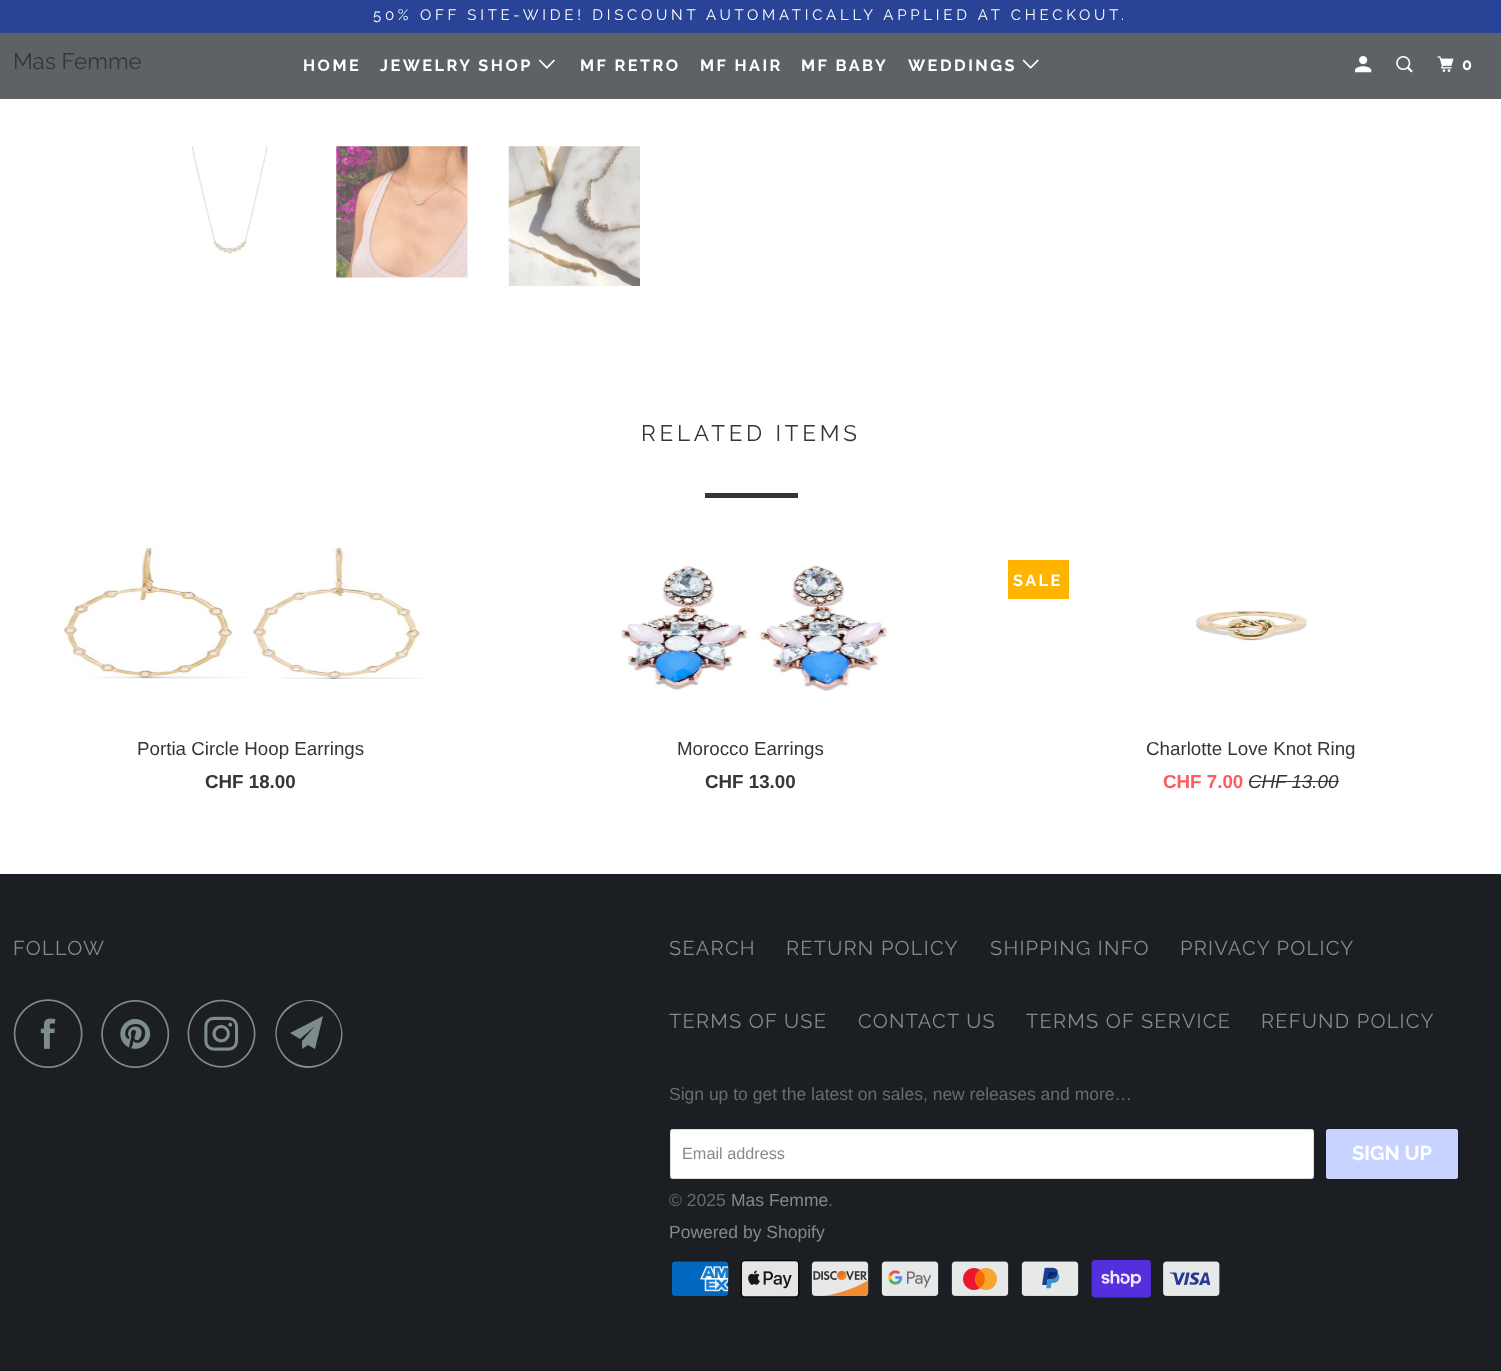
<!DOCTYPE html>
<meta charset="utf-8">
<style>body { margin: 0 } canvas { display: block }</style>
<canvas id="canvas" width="1501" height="1371"></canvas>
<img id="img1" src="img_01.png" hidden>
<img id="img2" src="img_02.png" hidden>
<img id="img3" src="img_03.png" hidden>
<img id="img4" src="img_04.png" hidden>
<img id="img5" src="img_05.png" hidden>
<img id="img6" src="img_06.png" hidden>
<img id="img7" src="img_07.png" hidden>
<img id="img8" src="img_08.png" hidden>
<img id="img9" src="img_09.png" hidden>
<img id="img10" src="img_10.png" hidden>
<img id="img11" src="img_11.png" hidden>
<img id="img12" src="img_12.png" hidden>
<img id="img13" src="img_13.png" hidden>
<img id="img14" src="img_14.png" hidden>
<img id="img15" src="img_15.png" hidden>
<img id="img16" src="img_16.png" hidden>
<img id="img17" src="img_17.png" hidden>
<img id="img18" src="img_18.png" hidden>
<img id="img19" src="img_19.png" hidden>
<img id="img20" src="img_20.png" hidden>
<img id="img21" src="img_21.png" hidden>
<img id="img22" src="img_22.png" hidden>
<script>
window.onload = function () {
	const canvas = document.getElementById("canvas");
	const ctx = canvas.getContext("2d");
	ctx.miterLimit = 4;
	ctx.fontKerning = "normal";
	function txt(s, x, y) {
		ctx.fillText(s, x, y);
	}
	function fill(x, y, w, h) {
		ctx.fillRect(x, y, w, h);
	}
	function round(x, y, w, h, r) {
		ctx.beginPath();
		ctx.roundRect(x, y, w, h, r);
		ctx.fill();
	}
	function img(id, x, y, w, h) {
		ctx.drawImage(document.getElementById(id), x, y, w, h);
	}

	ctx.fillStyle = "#FFFFFF";
	fill(0, 0, 1501, 1371);
	ctx.fillStyle = "#294397";
	fill(0, 0, 1501, 33);
	ctx.fillStyle = "rgba(27, 31, 35, 0.7)";
	fill(0, 33, 1501, 66);
	img("img1", 538, 59, 17, 10);
	img("img2", 1022, 59, 17, 10);
	img("img3", 1355, 56, 17, 17);
	img("img4", 1396, 56, 17, 17);
	img("img5", 1437, 56, 17, 16);
	img("img6", 191, 146, 77, 108);
	img("img7", 336, 146, 132, 132);
	img("img8", 508, 146, 132, 141);
	ctx.fillStyle = "#363636";
	fill(705, 493, 93, 5);
	img("img9", 63, 547, 364, 132);
	img("img10", 620, 564, 268, 127);
	ctx.fillStyle = "#FFB400";
	fill(1008, 560, 61, 39);
	img("img11", 1195, 611, 112, 30);
	ctx.fillStyle = "#363636";
	fill(1249, 781, 90, 1);
	ctx.fillStyle = "#1B1F23";
	fill(0, 874, 1501, 497);
	img("img12", 13, 999, 70, 69);
	img("img13", 101, 1000, 69, 68);
	img("img14", 187, 999, 69, 69);
	ctx.fillStyle = "#7F8C8D";
	ctx.beginPath();
	ctx.moveTo(315, 1049);
	ctx.lineTo(308, 1045);
	ctx.lineTo(302, 1049);
	ctx.lineTo(302, 1041);
	ctx.lineTo(315, 1026);
	ctx.lineTo(300, 1039);
	ctx.lineTo(290, 1033);
	ctx.lineTo(323, 1016);
	ctx.closePath();
	ctx.moveTo(309, 1001);
	ctx.bezierCurveTo(302, 1001, 295, 1004, 290, 1008);
	ctx.bezierCurveTo(265, 1026, 278, 1066, 309, 1066);
	ctx.bezierCurveTo(340, 1066, 353, 1026, 328, 1008);
	ctx.bezierCurveTo(323, 1004, 316, 1001, 309, 1001);
	ctx.closePath();
	ctx.moveTo(309, 1068);
	ctx.bezierCurveTo(277, 1068, 263, 1026, 289, 1006);
	ctx.bezierCurveTo(295, 1002, 302, 1000, 309, 1000);
	ctx.bezierCurveTo(341, 1000, 355, 1042, 329, 1061);
	ctx.bezierCurveTo(323, 1065, 316, 1068, 309, 1068);
	ctx.closePath();
	ctx.fill();
	ctx.fillStyle = "#FFFFFF";
	ctx.beginPath();
	ctx.roundRect(670.5, 1129.5, 643, 49, 2);
	ctx.fill();
	ctx.strokeStyle = "#DFDFDF";
	ctx.stroke();
	ctx.fillStyle = "#C9D3FF";
	round(1326, 1129, 132, 50, 2.5);
	img("img15", 671, 1261, 58, 35);
	img("img16", 740, 1260, 60, 38);
	img("img17", 811, 1261, 58, 35);
	img("img18", 881, 1261, 58, 35);
	img("img19", 951, 1261, 58, 35);
	img("img20", 1021, 1261, 58, 35);
	img("img21", 1091, 1260, 60, 38);
	img("img22", 1163, 1261, 57, 35);
	ctx.letterSpacing = "3.75px";
	ctx.font = "15px Raleway";
	ctx.fillStyle = "#FFFFFF";
	txt("50% OFF SITE-WIDE! DISCOUNT AUTOMATICALLY APPLIED AT CHECKOUT.", 373, 20);
	ctx.letterSpacing = "0px";
	ctx.font = "22.5px Raleway";
	ctx.fillStyle = "#363636";
	txt("Mas Femme", 13, 69);
	ctx.letterSpacing = "2.5px";
	ctx.font = "bold 16.25px Raleway";
	ctx.fillStyle = "#FFFFFF";
	txt("HOME", 303, 71);
	txt("JEWELRY SHOP", 380, 71);
	txt("MF RETRO", 580, 71);
	txt("MF HAIR", 700, 71);
	txt("MF BABY", 801, 71);
	txt("WEDDINGS", 908, 71);
	txt("0", 1462, 70);
	ctx.letterSpacing = "3.75px";
	ctx.font = "22.5px Raleway";
	ctx.fillStyle = "#363636";
	txt("RELATED ITEMS", 641, 441);
	ctx.letterSpacing = "0px";
	ctx.font = "18.75px Liberation Sans";
	txt("Portia Circle Hoop Earrings", 137, 755);
	ctx.font = "bold 18.75px Liberation Sans";
	txt("CHF 18.00", 205, 788);
	ctx.font = "18.75px Liberation Sans";
	txt("Morocco Earrings", 677, 755);
	ctx.font = "bold 18.75px Liberation Sans";
	txt("CHF 13.00", 705, 788);
	ctx.letterSpacing = "2.5px";
	ctx.font = "bold 16.25px Raleway";
	ctx.fillStyle = "#FFFFFF";
	txt("SALE", 1013, 586);
	ctx.letterSpacing = "0px";
	ctx.font = "18.75px Liberation Sans";
	ctx.fillStyle = "#363636";
	txt("Charlotte Love Knot Ring", 1146, 755);
	ctx.font = "bold 18.75px Liberation Sans";
	ctx.fillStyle = "#FF5A5F";
	txt("CHF 7.00", 1163, 788);
	ctx.font = "italic 18.75px Liberation Sans";
	ctx.fillStyle = "#363636";
	txt("CHF 13.00", 1248, 788);
	ctx.letterSpacing = "1.25px";
	ctx.font = "20px Raleway";
	ctx.fillStyle = "#7F8C8D";
	txt("FOLLOW", 13, 955);
	txt("SEARCH", 669, 955);
	txt("RETURN POLICY", 786, 955);
	txt("SHIPPING INFO", 990, 955);
	txt("PRIVACY POLICY", 1180, 955);
	txt("TERMS OF USE", 669, 1028);
	txt("CONTACT US", 858, 1028);
	txt("TERMS OF SERVICE", 1026, 1028);
	txt("REFUND POLICY", 1261, 1028);
	ctx.letterSpacing = "0px";
	ctx.font = "17.5px Liberation Sans";
	ctx.fillStyle = "#6B6B6B";
	txt("Sign up to get the latest on sales, new releases and more…", 669, 1100);
	ctx.font = "16.25px Liberation Sans";
	ctx.fillStyle = "#888888";
	txt("Email address", 682, 1159);
	ctx.font = "bold 20px Raleway";
	ctx.fillStyle = "#FFFFFF";
	txt("SIGN UP", 1352, 1160);
	ctx.font = "17.5px Liberation Sans";
	ctx.fillStyle = "#6B6B6B";
	txt("© 2025", 669, 1206);
	ctx.fillStyle = "#7F8C8D";
	txt("Mas Femme", 731, 1206);
	ctx.fillStyle = "#6B6B6B";
	txt(".", 828, 1206);
	ctx.fillStyle = "#7F8C8D";
	txt("Powered by Shopify", 669, 1238);
};
</script>
